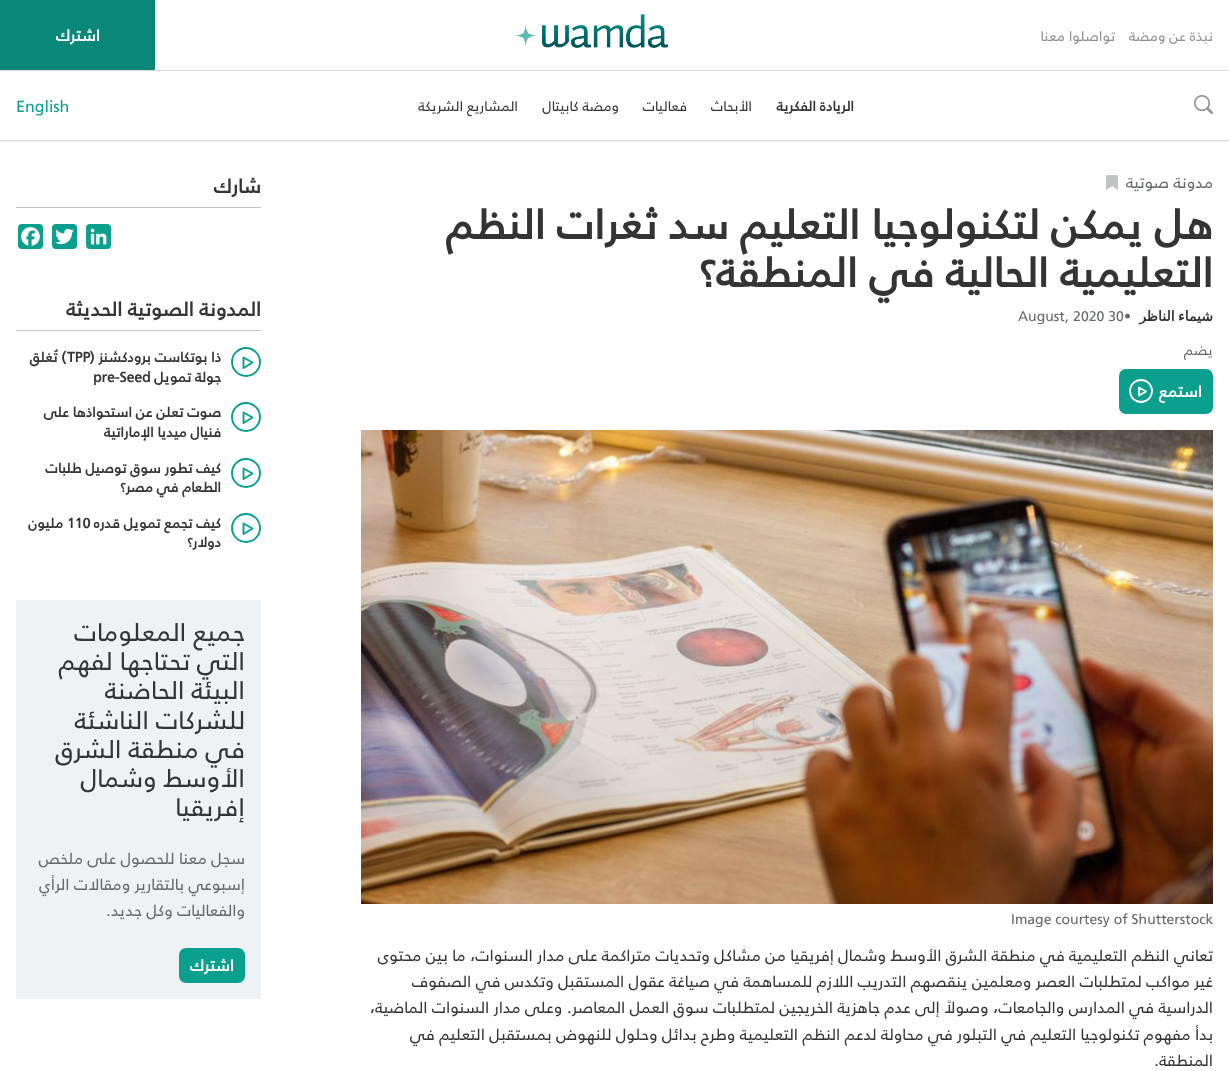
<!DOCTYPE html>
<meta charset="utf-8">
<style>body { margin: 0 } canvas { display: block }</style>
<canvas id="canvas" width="1229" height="1071"></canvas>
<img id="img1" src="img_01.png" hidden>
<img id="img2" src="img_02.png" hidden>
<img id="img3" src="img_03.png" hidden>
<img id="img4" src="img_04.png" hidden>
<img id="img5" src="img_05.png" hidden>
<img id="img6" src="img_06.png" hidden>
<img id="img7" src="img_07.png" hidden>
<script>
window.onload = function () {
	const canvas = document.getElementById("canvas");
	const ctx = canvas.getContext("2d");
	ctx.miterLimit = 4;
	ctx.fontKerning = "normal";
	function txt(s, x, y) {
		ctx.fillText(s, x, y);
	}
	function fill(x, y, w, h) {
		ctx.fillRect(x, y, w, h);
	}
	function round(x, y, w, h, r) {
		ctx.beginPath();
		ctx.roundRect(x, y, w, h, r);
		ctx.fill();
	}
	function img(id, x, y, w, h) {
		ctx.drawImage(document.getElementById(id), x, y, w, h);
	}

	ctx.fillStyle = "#FFFFFF";
	fill(0, 0, 1229, 1071);
	ctx.fillStyle = "#EEEEEE";
	fill(0, 141, 1229, 1);
	img("img1", 513, 14, 155, 35);
	ctx.fillStyle = "#098779";
	fill(0, 0, 155, 70);
	ctx.fillStyle = "#DDDDDD";
	fill(0, 70, 1229, 1);
	fill(0, 140, 1229, 1);
	img("img2", 1194, 95, 19, 19);
	img("img3", 1106, 175, 12, 15);
	ctx.fillStyle = "#0B9F8E";
	round(1119, 369, 94, 45, 7);
	ctx.beginPath();
	ctx.arc(1141, 391, 11, 0, Math.PI * 2);
	ctx.strokeStyle = "#FFFFFF";
	ctx.lineWidth = 1.8;
	ctx.stroke();
	ctx.beginPath();
	ctx.moveTo(1139, 395.5);
	ctx.lineTo(1139, 387.5);
	ctx.lineTo(1146, 391.5);
	ctx.closePath();
	ctx.lineJoin = "round";
	ctx.stroke();
	img("img4", 361, 430, 852, 474);
	ctx.fillStyle = "#C1C2C2";
	fill(16, 207, 245, 1);
	ctx.fillStyle = "#0B9F8E";
	round(86, 224, 25, 25, 4);
	img("img5", 90, 228, 17, 17);
	round(52, 224, 25, 25, 4);
	img("img6", 55, 228, 19, 17);
	round(18, 224, 25, 25, 4);
	img("img7", 21, 227, 19, 19);
	ctx.fillStyle = "#C1C2C2";
	fill(16, 330, 245, 1);
	ctx.beginPath();
	ctx.arc(246, 362, 14, 0, Math.PI * 2);
	ctx.strokeStyle = "#0B9F8E";
	ctx.lineWidth = 1.9;
	ctx.stroke();
	ctx.beginPath();
	ctx.moveTo(243.5, 368);
	ctx.lineTo(243.5, 357.5);
	ctx.lineTo(252.5, 362.5);
	ctx.closePath();
	ctx.stroke();
	ctx.beginPath();
	ctx.arc(246, 417, 14, 0, Math.PI * 2);
	ctx.stroke();
	ctx.beginPath();
	ctx.moveTo(243.5, 423);
	ctx.lineTo(243.5, 412.5);
	ctx.lineTo(252.5, 417.5);
	ctx.closePath();
	ctx.stroke();
	ctx.beginPath();
	ctx.arc(246, 473, 14, 0, Math.PI * 2);
	ctx.stroke();
	ctx.beginPath();
	ctx.moveTo(243.5, 479);
	ctx.lineTo(243.5, 468.5);
	ctx.lineTo(252.5, 473.5);
	ctx.closePath();
	ctx.stroke();
	ctx.beginPath();
	ctx.arc(246, 528, 14, 0, Math.PI * 2);
	ctx.stroke();
	ctx.beginPath();
	ctx.moveTo(243.5, 534);
	ctx.lineTo(243.5, 523.5);
	ctx.lineTo(252.5, 528.5);
	ctx.closePath();
	ctx.stroke();
	ctx.fillStyle = "#EEF2F4";
	fill(16, 600, 245, 399);
	ctx.fillStyle = "#0B9F8E";
	round(179, 948, 66, 35, 7);
	ctx.direction = "rtl";
	ctx.font = "14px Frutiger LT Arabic";
	ctx.fillStyle = "#8E9091";
	txt("نبذة عن ومضة", 1213, 41);
	txt("تواصلوا معنا", 1115, 41);
	ctx.font = "bold 16px Frutiger LT Arabic";
	ctx.fillStyle = "#FFFFFF";
	txt("اشترك", 100, 41);
	ctx.font = "bold 14px Frutiger LT Arabic";
	ctx.fillStyle = "#343434";
	txt("الريادة الفكرية", 854, 111);
	ctx.font = "14px Frutiger LT Arabic";
	txt("الأبحاث", 752, 111);
	txt("فعاليات", 687, 111);
	txt("ومضة كابيتال", 619, 111);
	txt("المشاريع الشريكة", 518, 111);
	ctx.direction = "ltr";
	ctx.font = "16px Frutiger LT Arabic";
	ctx.fillStyle = "#0B9F8E";
	txt("English", 16, 112);
	ctx.direction = "rtl";
	ctx.fillStyle = "#676A6C";
	txt("مدونة صوتية", 1213, 188);
	ctx.font = "bold 42px Frutiger LT Arabic";
	ctx.fillStyle = "#343434";
	txt("هل يمكن لتكنولوجيا التعليم سد ثغرات النظم", 1213, 239);
	txt("التعليمية الحالية في المنطقة؟", 1213, 287);
	ctx.wordSpacing = "-1px";
	ctx.font = "bold 14px DejaVu Sans";
	txt("شيماء الناظر", 1213, 321);
	ctx.wordSpacing = "0px";
	ctx.direction = "ltr";
	ctx.font = "14px Frutiger LT Arabic";
	ctx.fillStyle = "#676A6C";
	txt("•", 1124, 321);
	txt("August, 2020 30", 1018, 321);
	ctx.direction = "rtl";
	txt("يضم", 1213, 355);
	ctx.font = "bold 16px Frutiger LT Arabic";
	ctx.fillStyle = "#FFFFFF";
	txt("استمع", 1202, 397);
	ctx.direction = "ltr";
	ctx.font = "14px Frutiger LT Arabic";
	ctx.fillStyle = "#676A6C";
	txt("Image courtesy of Shutterstock", 1011, 924);
	ctx.direction = "rtl";
	ctx.font = "16px Frutiger LT Arabic";
	ctx.fillStyle = "#343434";
	txt("تعاني النظم التعليمية في منطقة الشرق الأوسط وشمال إفريقيا من مشاكل وتحديات متراكمة على مدار السنوات، ما بين محتوى", 1213, 961);
	txt("غير مواكب لمتطلبات العصر ومعلمين ينقصهم التدريب اللازم للمساهمة في صياغة عقول المستقبل وتكدس في الصفوف", 1213, 987);
	txt("الدراسية في المدارس والجامعات، وصولاً إلى عدم جاهزية الخريجين لمتطلبات سوق العمل المعاصر. وعلى مدار السنوات الماضية،", 1213, 1013);
	txt("بدأ مفهوم تكنولوجيا التعليم في التبلور في محاولة لدعم النظم التعليمية وطرح بدائل وحلول للنهوض بمستقبل التعليم في", 1213, 1040);
	txt("المنطقة.", 1213, 1066);
	ctx.font = "bold 20px Frutiger LT Arabic";
	txt("شارك", 261, 193);
	txt("المدونة الصوتية الحديثة", 261, 316);
	ctx.font = "bold 14px Frutiger LT Arabic";
	txt("ذا بوتكاست برودكشنز (", 221, 362);
	txt(") تُغلق", 66, 362);
	ctx.direction = "ltr";
	txt("TPP", 67, 362);
	ctx.direction = "rtl";
	txt("جولة تمويل", 221, 382);
	ctx.direction = "ltr";
	txt("pre-Seed", 93, 382);
	ctx.direction = "rtl";
	txt("صوت تعلن عن استحواذها على", 221, 417);
	txt("فنيال ميديا الإماراتية", 221, 437);
	txt("كيف تطور سوق توصيل طلبات", 221, 473);
	txt("الطعام في مصر؟", 221, 492);
	txt("كيف تجمع تمويل قدره", 221, 528);
	ctx.direction = "ltr";
	txt("110", 67, 528);
	ctx.direction = "rtl";
	txt("مليون", 63, 528);
	txt("دولار؟", 221, 547);
	ctx.font = "25.5px Frutiger LT Arabic";
	txt("جميع المعلومات", 245, 641);
	txt("التي تحتاجها لفهم", 245, 670);
	txt("البيئة الحاضنة", 245, 699);
	txt("للشركات الناشئة", 245, 729);
	txt("في منطقة الشرق", 245, 758);
	txt("الأوسط وشمال", 245, 787);
	txt("إفريقيا", 245, 816);
	ctx.font = "16px Frutiger LT Arabic";
	ctx.fillStyle = "#676A6C";
	txt("سجل معنا للحصول على ملخص", 245, 864);
	txt("إسبوعي بالتقارير ومقالات الرأي", 245, 890);
	txt("والفعاليات وكل جديد.", 245, 916);
	ctx.font = "bold 16px Frutiger LT Arabic";
	ctx.fillStyle = "#FFFFFF";
	txt("اشترك", 234, 971);
};
</script>
